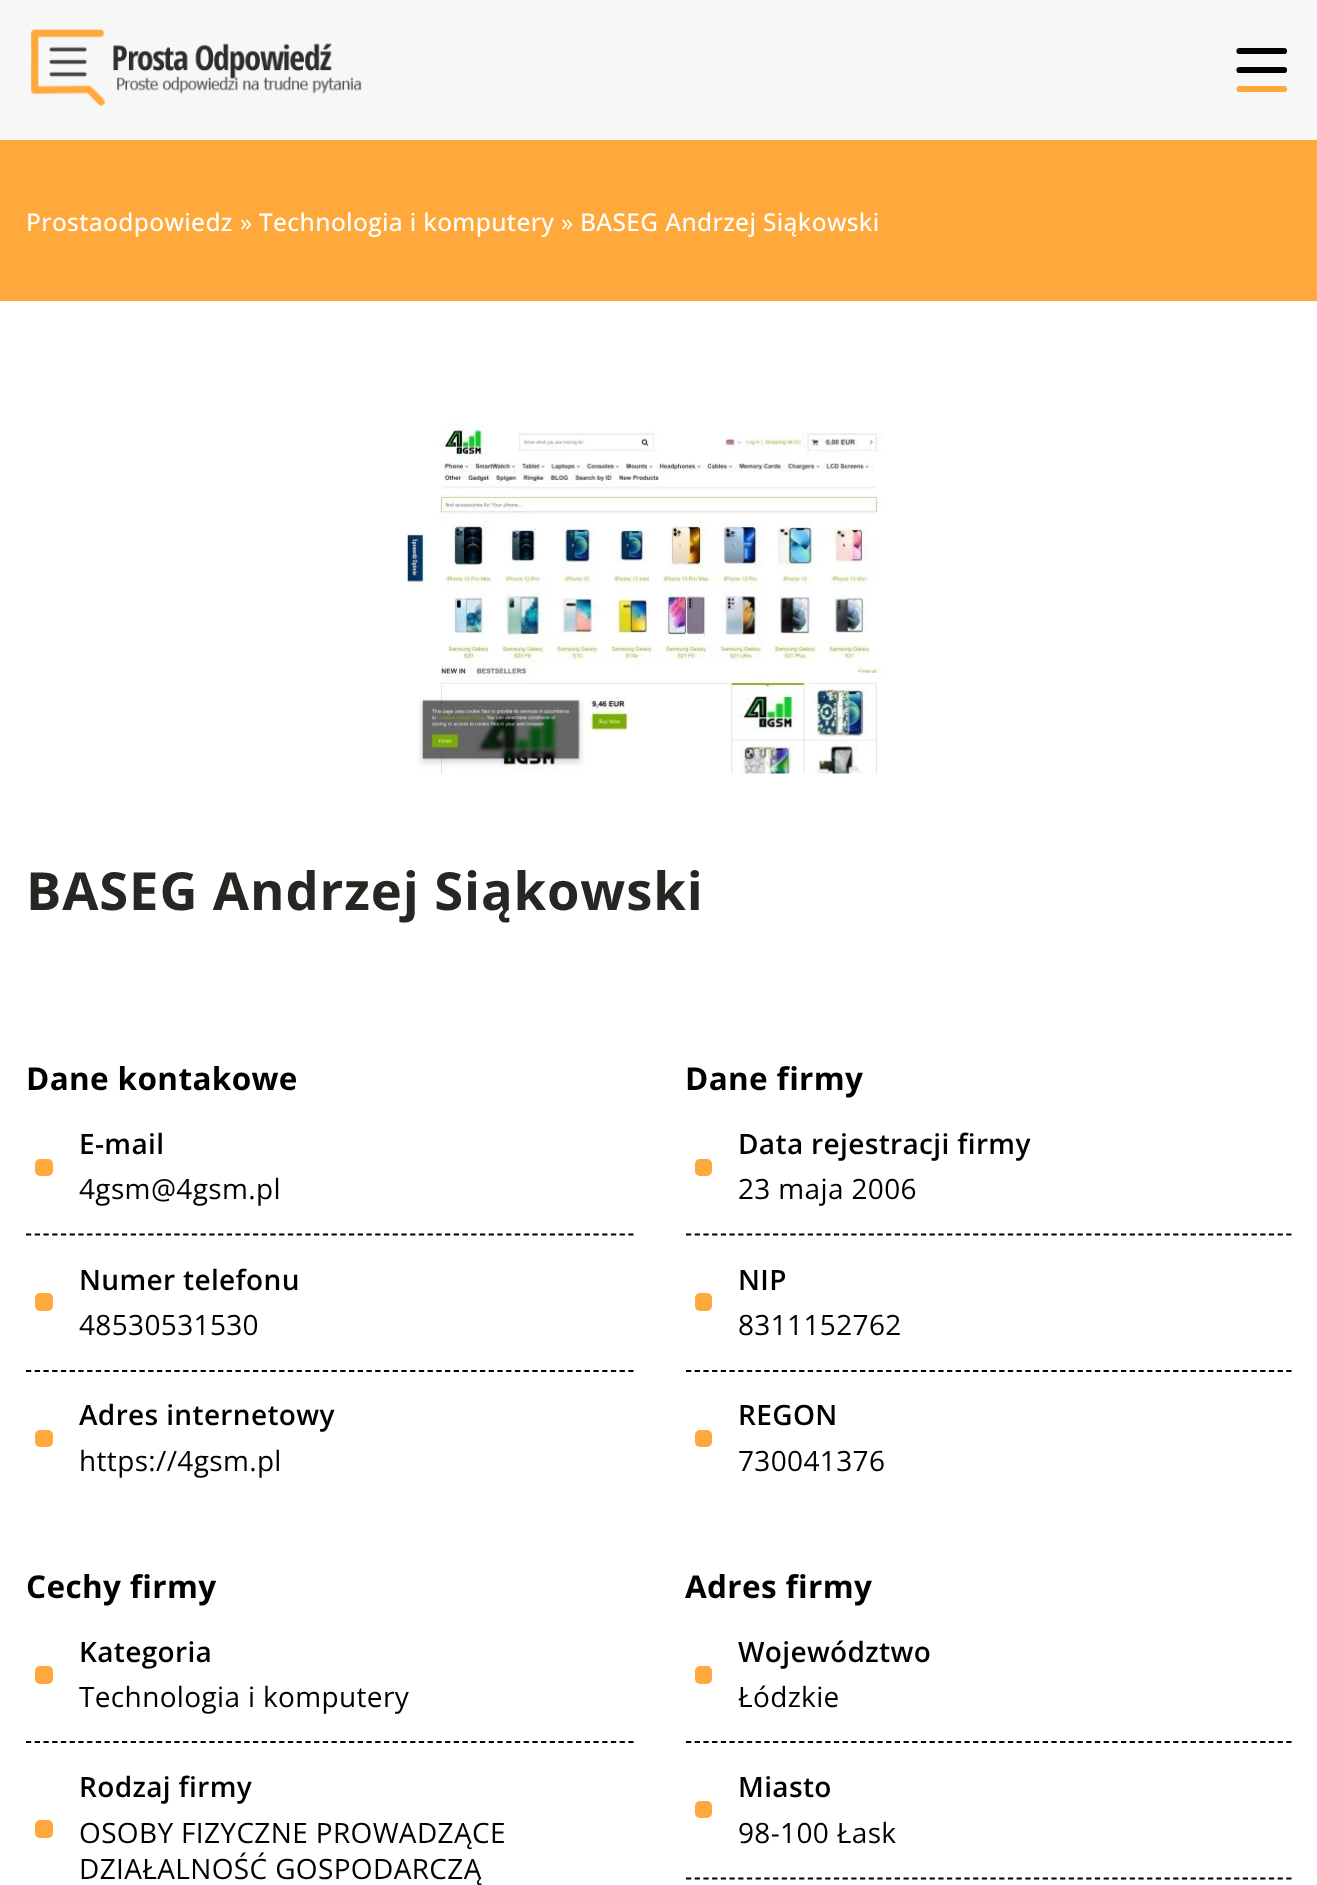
<!DOCTYPE html>
<meta charset="utf-8">
<style>body { margin: 0 } canvas { display: block }</style>
<canvas id="canvas" width="1317" height="1885"></canvas>
<img id="img1" src="img_01.png" hidden>
<img id="img2" src="img_02.png" hidden>
<script>
window.onload = function () {
	const canvas = document.getElementById("canvas");
	const ctx = canvas.getContext("2d");
	ctx.miterLimit = 4;
	ctx.fontKerning = "normal";
	function txt(s, x, y) {
		ctx.fillText(s, x, y);
	}
	function fill(x, y, w, h) {
		ctx.fillRect(x, y, w, h);
	}
	function round(x, y, w, h, r) {
		ctx.beginPath();
		ctx.roundRect(x, y, w, h, r);
		ctx.fill();
	}
	function img(id, x, y, w, h) {
		ctx.drawImage(document.getElementById(id), x, y, w, h);
	}

	ctx.fillStyle = "#FFFFFF";
	fill(0, 0, 1317, 1885);
	ctx.fillStyle = "#F7F7F7";
	fill(0, 0, 1317, 140);
	img("img1", 31, 29, 331, 78);
	ctx.beginPath();
	ctx.moveTo(1239.5, 51);
	ctx.lineTo(1284, 51);
	ctx.moveTo(1239.5, 70);
	ctx.lineTo(1284, 70);
	ctx.strokeStyle = "#000000";
	ctx.lineWidth = 6.2;
	ctx.lineCap = "round";
	ctx.stroke();
	ctx.beginPath();
	ctx.moveTo(1284, 89);
	ctx.lineTo(1239.5, 89);
	ctx.strokeStyle = "#FFA83B";
	ctx.stroke();
	ctx.fillStyle = "#FFA83B";
	fill(0, 140, 1317, 161);
	img("img2", 407, 423, 475, 351);
	ctx.beginPath();
	ctx.moveTo(26, 1234.5);
	ctx.lineTo(633.5, 1234.5);
	ctx.strokeStyle = "#000000";
	ctx.lineWidth = 1.8;
	ctx.lineCap = "butt";
	ctx.setLineDash([5.25, 3.48]);
	ctx.stroke();
	round(35, 1159, 18, 17, 5);
	ctx.beginPath();
	ctx.moveTo(26, 1371);
	ctx.lineTo(633.5, 1371);
	ctx.stroke();
	round(35, 1293, 18, 18, 5);
	round(35, 1430, 18, 17, 5);
	ctx.beginPath();
	ctx.moveTo(686, 1234.5);
	ctx.lineTo(1291.5, 1234.5);
	ctx.setLineDash([5.25, 3.45]);
	ctx.stroke();
	round(695, 1159, 17, 17, 5);
	ctx.beginPath();
	ctx.moveTo(686, 1371);
	ctx.lineTo(1291.5, 1371);
	ctx.stroke();
	round(695, 1293, 17, 18, 5);
	round(695, 1430, 17, 17, 5);
	ctx.beginPath();
	ctx.moveTo(26, 1742);
	ctx.lineTo(633.5, 1742);
	ctx.setLineDash([5.25, 3.48]);
	ctx.stroke();
	round(35, 1666, 18, 18, 5);
	round(35, 1820, 18, 18, 5);
	ctx.beginPath();
	ctx.moveTo(686, 1742);
	ctx.lineTo(1291.5, 1742);
	ctx.setLineDash([5.25, 3.45]);
	ctx.stroke();
	round(695, 1666, 17, 18, 5);
	ctx.beginPath();
	ctx.moveTo(686, 1878.5);
	ctx.lineTo(1291.5, 1878.5);
	ctx.stroke();
	round(695, 1801, 17, 17, 5);
	ctx.letterSpacing = "0.35px";
	ctx.font = "500 24.5px Open Sans";
	ctx.fillStyle = "#FFFFFF";
	txt("Prostaodpowiedz", 26, 231);
	ctx.font = "24.5px Open Sans";
	txt("»", 240, 231);
	ctx.font = "500 24.5px Open Sans";
	txt("Technologia i komputery", 259, 231);
	ctx.font = "24.5px Open Sans";
	txt("»", 561, 231);
	ctx.font = "500 24.5px Open Sans";
	txt("BASEG Andrzej Siąkowski", 580, 231);
	ctx.letterSpacing = "0.9px";
	ctx.font = "bold 52.5px Open Sans";
	ctx.fillStyle = "#282622";
	txt("BASEG Andrzej Siąkowski", 26, 910);
	ctx.letterSpacing = "0.35px";
	ctx.font = "bold 31.5px Open Sans";
	ctx.fillStyle = "#000000";
	txt("Dane kontakowe", 26, 1090);
	ctx.font = "600 28px Open Sans";
	txt("E-mail", 79, 1154);
	ctx.font = "28px Open Sans";
	txt("4gsm@4gsm.pl", 79, 1199);
	ctx.font = "600 28px Open Sans";
	txt("Numer telefonu", 79, 1290);
	ctx.font = "28px Open Sans";
	txt("48530531530", 79, 1335);
	ctx.font = "600 28px Open Sans";
	txt("Adres internetowy", 79, 1425);
	ctx.font = "28px Open Sans";
	txt("https://4gsm.pl", 79, 1471);
	ctx.font = "bold 31.5px Open Sans";
	txt("Dane firmy", 685, 1090);
	ctx.font = "600 28px Open Sans";
	txt("Data rejestracji firmy", 738, 1154);
	ctx.font = "28px Open Sans";
	txt("23 maja 2006", 738, 1199);
	ctx.font = "600 28px Open Sans";
	txt("NIP", 738, 1290);
	ctx.font = "28px Open Sans";
	txt("8311152762", 738, 1335);
	ctx.font = "600 28px Open Sans";
	txt("REGON", 738, 1425);
	ctx.font = "28px Open Sans";
	txt("730041376", 738, 1471);
	ctx.font = "bold 31.5px Open Sans";
	txt("Cechy firmy", 26, 1598);
	ctx.font = "600 28px Open Sans";
	txt("Kategoria", 79, 1662);
	ctx.font = "28px Open Sans";
	txt("Technologia i komputery", 79, 1707);
	ctx.font = "600 28px Open Sans";
	txt("Rodzaj firmy", 79, 1797);
	ctx.font = "28px Open Sans";
	txt("OSOBY FIZYCZNE PROWADZĄCE", 79, 1843);
	txt("DZIAŁALNOŚĆ GOSPODARCZĄ", 79, 1879);
	ctx.font = "bold 31.5px Open Sans";
	txt("Adres firmy", 685, 1598);
	ctx.font = "600 28px Open Sans";
	txt("Województwo", 738, 1662);
	ctx.font = "28px Open Sans";
	txt("Łódzkie", 738, 1707);
	ctx.font = "600 28px Open Sans";
	txt("Miasto", 738, 1797);
	ctx.font = "28px Open Sans";
	txt("98-100 Łask", 738, 1843);
};
</script>
